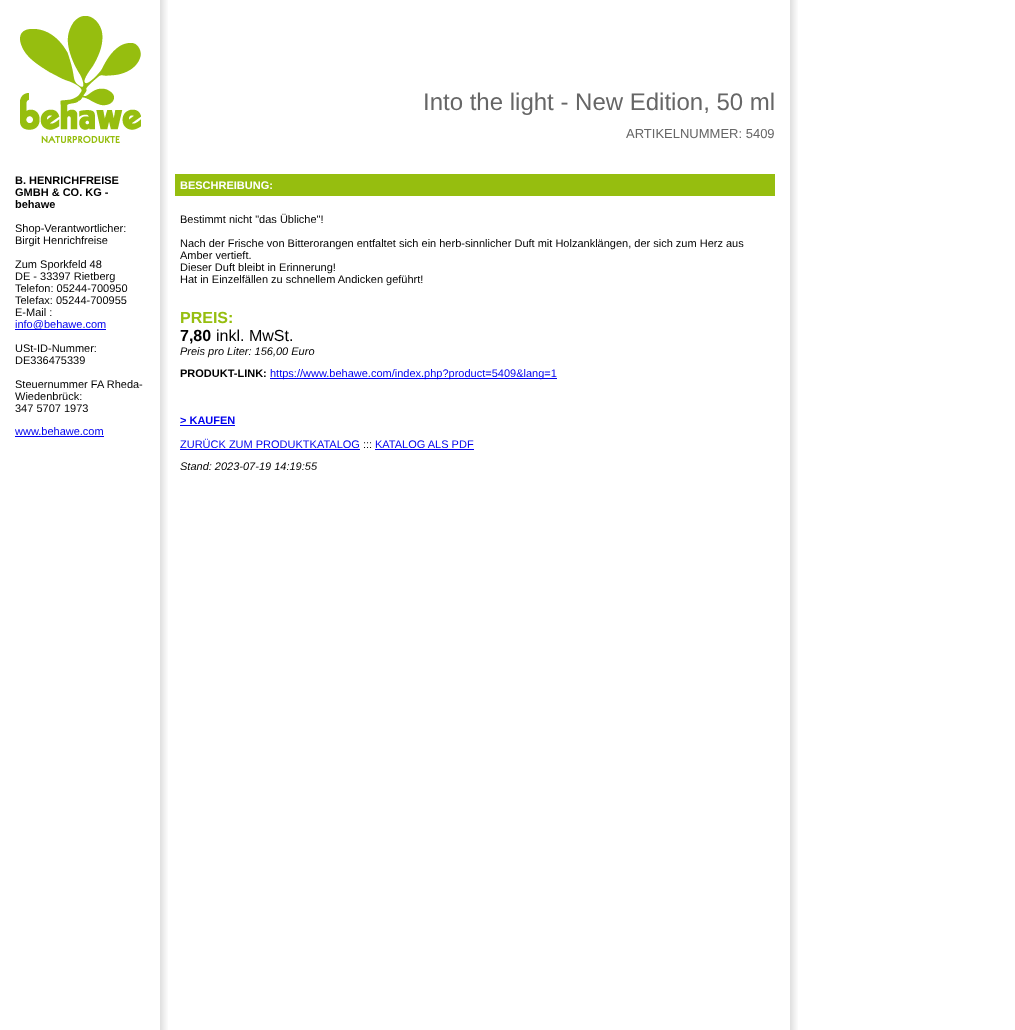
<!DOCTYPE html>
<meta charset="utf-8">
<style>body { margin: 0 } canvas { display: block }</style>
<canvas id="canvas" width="1015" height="1030"></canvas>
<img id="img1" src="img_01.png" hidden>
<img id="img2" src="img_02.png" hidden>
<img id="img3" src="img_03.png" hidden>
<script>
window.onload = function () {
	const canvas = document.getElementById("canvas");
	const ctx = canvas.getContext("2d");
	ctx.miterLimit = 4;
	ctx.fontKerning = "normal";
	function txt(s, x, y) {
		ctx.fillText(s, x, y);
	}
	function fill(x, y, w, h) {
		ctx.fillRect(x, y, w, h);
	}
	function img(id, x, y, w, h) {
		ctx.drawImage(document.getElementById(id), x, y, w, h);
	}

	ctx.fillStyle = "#FFFFFF";
	fill(0, 0, 1015, 1030);
	img("img1", 20, 16, 121, 127);
	img("img2", 160, 0, 8, 159);
	img("img2", 790, 0, 8, 159);
	ctx.fillStyle = "#0000EE";
	fill(15, 329, 91, 1);
	fill(15, 436, 89, 1);
	img("img3", 160, 159, 8, 871);
	ctx.fillStyle = "#96BE0F";
	fill(175, 174, 600, 22);
	ctx.fillStyle = "#0000EE";
	fill(270, 378, 287, 1);
	fill(180, 425, 55, 1);
	fill(180, 449, 180, 1);
	fill(375, 449, 99, 1);
	img("img3", 790, 159, 8, 871);
	ctx.font = "24px Liberation Sans";
	ctx.fillStyle = "#666666";
	txt("Into the light - New Edition, 50 ml", 423, 110);
	ctx.font = "13px Liberation Sans";
	txt("ARTIKELNUMMER: 5409", 626, 138);
	ctx.font = "bold 11px Liberation Sans";
	ctx.fillStyle = "#000000";
	txt("B. HENRICHFREISE", 15, 184);
	txt("GMBH & CO. KG -", 15, 196);
	txt("behawe", 15, 208);
	ctx.font = "11px Liberation Sans";
	txt("Shop-Verantwortlicher:", 15, 232);
	txt("Birgit Henrichfreise", 15, 244);
	txt("Zum Sporkfeld 48", 15, 268);
	txt("DE - 33397 Rietberg", 15, 280);
	txt("Telefon: 05244-700950", 15, 292);
	txt("Telefax: 05244-700955", 15, 304);
	txt("E-Mail :", 15, 316);
	ctx.fillStyle = "#0000EE";
	txt("info@behawe.com", 15, 328);
	ctx.fillStyle = "#000000";
	txt("USt-ID-Nummer:", 15, 352);
	txt("DE336475339", 15, 364);
	txt("Steuernummer FA Rheda-", 15, 388);
	txt("Wiedenbrück:", 15, 400);
	txt("347 5707 1973", 15, 412);
	ctx.fillStyle = "#0000EE";
	txt("www.behawe.com", 15, 435);
	ctx.font = "bold 11px Liberation Sans";
	ctx.fillStyle = "#FFFFFF";
	txt("BESCHREIBUNG:", 180, 189);
	ctx.font = "11px Liberation Sans";
	ctx.fillStyle = "#000000";
	txt("Bestimmt nicht \"das Übliche\"!", 180, 223);
	txt("Nach der Frische von Bitterorangen entfaltet sich ein herb-sinnlicher Duft mit Holzanklängen, der sich zum Herz aus", 180, 247);
	txt("Amber vertieft.", 180, 259);
	txt("Dieser Duft bleibt in Erinnerung!", 180, 271);
	txt("Hat in Einzelfällen zu schnellem Andicken geführt!", 180, 283);
	ctx.font = "bold 16px Liberation Sans";
	ctx.fillStyle = "#96BE0F";
	txt("PREIS:", 180, 323);
	ctx.fillStyle = "#000000";
	txt("7,80", 180, 341);
	ctx.font = "16px Liberation Sans";
	txt("inkl. MwSt.", 216, 341);
	ctx.font = "italic 11px Liberation Sans";
	txt("Preis pro Liter: 156,00 Euro", 180, 355);
	ctx.font = "bold 11px Liberation Sans";
	txt("PRODUKT-LINK:", 180, 377);
	ctx.font = "11px Liberation Sans";
	ctx.fillStyle = "#0000EE";
	txt("https://www.behawe.com/index.php?product=5409&lang=1", 270, 377);
	ctx.font = "bold 11px Liberation Sans";
	txt("> KAUFEN", 180, 424);
	ctx.font = "11px Liberation Sans";
	txt("ZURÜCK ZUM PRODUKTKATALOG", 180, 448);
	ctx.fillStyle = "#000000";
	txt(":::", 363, 448);
	ctx.fillStyle = "#0000EE";
	txt("KATALOG ALS PDF", 375, 448);
	ctx.font = "italic 11px Liberation Sans";
	ctx.fillStyle = "#000000";
	txt("Stand: 2023-07-19 14:19:55", 180, 470);
};
</script>
